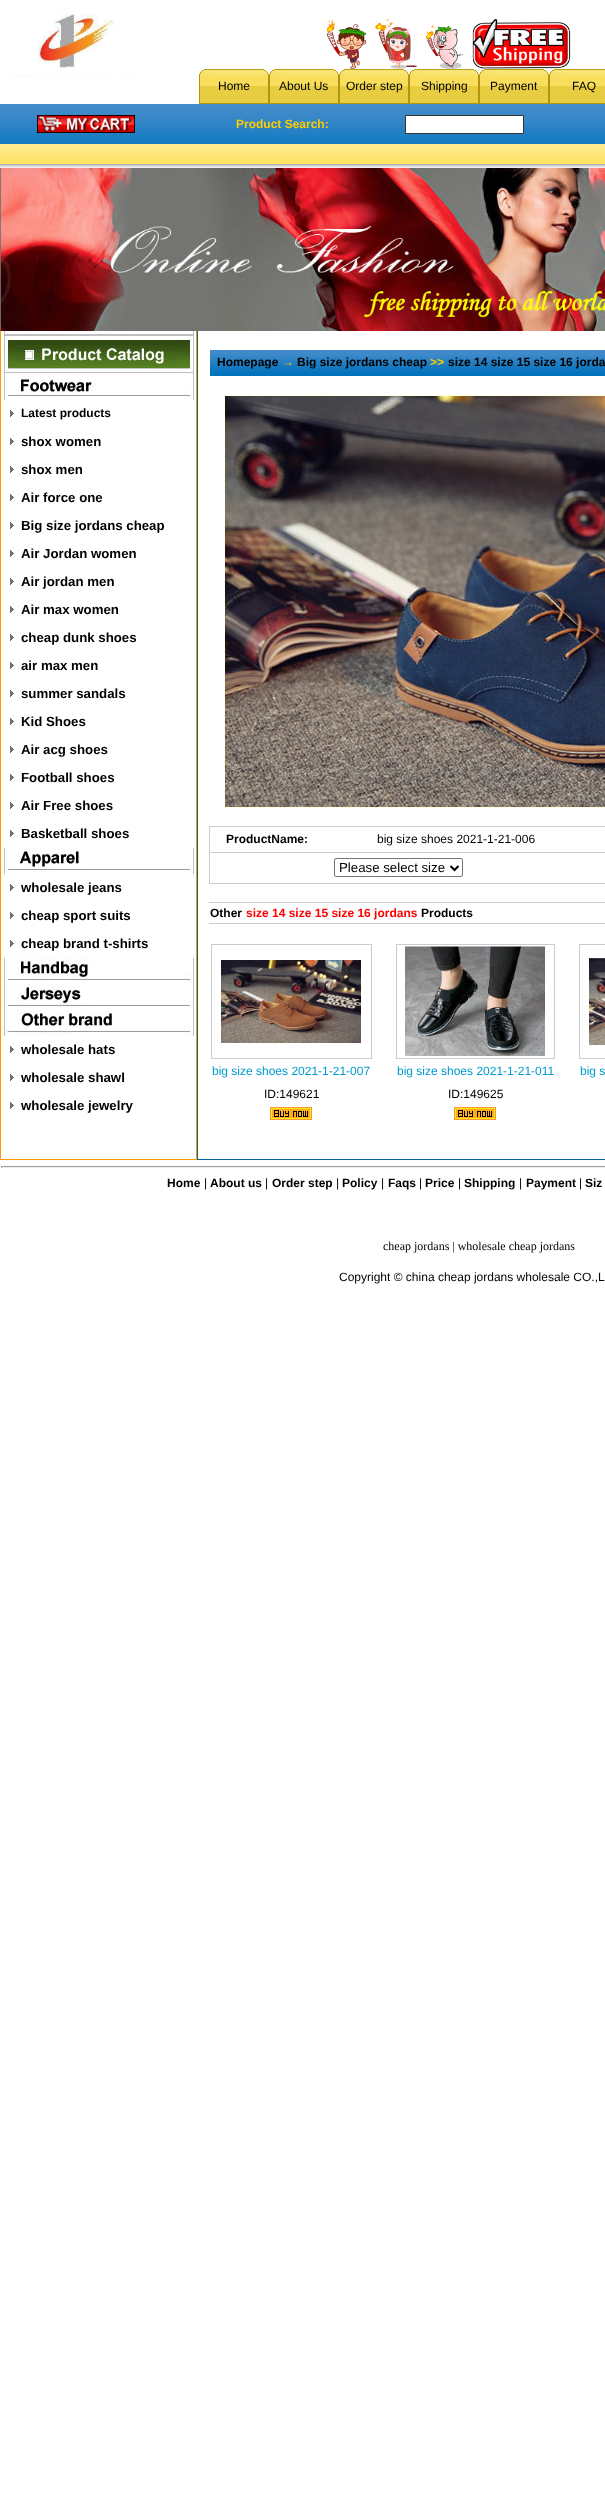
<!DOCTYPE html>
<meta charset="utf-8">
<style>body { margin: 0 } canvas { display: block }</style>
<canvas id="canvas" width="605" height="2502"></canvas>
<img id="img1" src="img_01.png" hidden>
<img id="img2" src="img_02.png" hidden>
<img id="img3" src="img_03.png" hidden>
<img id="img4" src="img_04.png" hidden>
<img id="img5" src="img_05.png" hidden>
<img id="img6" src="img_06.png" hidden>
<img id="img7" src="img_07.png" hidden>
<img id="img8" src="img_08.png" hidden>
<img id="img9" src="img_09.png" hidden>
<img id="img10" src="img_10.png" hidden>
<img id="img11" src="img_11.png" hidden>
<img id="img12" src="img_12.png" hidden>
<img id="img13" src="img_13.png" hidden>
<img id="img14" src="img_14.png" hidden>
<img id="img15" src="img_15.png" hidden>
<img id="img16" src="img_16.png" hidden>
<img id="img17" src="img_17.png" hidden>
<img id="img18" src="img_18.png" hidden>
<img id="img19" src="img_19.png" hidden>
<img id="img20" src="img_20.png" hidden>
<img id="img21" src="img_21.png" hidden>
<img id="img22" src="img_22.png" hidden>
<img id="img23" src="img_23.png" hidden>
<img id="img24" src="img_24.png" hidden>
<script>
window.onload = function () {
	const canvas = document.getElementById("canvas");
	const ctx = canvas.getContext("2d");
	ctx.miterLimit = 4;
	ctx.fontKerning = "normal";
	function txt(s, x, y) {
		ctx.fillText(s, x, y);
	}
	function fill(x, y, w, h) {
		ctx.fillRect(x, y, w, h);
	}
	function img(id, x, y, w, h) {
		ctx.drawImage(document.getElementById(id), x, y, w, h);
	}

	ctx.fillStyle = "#FFFFFF";
	fill(0, 0, 605, 2502);
	img("img1", 11, 12, 119, 78);
	img("img2", 326, 20, 41, 49);
	img("img3", 375, 19, 42, 50);
	img("img4", 426, 25, 37, 44);
	img("img5", 471, 19, 100, 50);
	img("img6", 199, 69, 70, 35);
	img("img6", 269, 69, 70, 35);
	img("img6", 339, 69, 70, 35);
	img("img6", 409, 69, 70, 35);
	img("img6", 479, 69, 70, 35);
	img("img7", 549, 69, 56, 35);
	img("img8", 0, 104, 605, 40);
	img("img9", 37, 115, 98, 18);
	ctx.beginPath();
	ctx.rect(405.5, 115.5, 118, 18);
	ctx.fill();
	ctx.strokeStyle = "#333333";
	ctx.stroke();
	img("img10", 0, 144, 605, 24);
	img("img11", 0, 168, 605, 163);
	ctx.fillStyle = "#FF9900";
	fill(196, 331, 1, 829);
	fill(0, 1159, 197, 1);
	fill(0, 331, 1, 829);
	img("img12", 1, 331, 193, 43);
	img("img13", 1, 374, 193, 26);
	img("img14", 10, 410, 4, 7);
	img("img14", 10, 438, 4, 7);
	img("img14", 10, 466, 4, 7);
	img("img14", 10, 494, 4, 7);
	img("img14", 10, 522, 4, 7);
	img("img14", 10, 550, 4, 7);
	img("img14", 10, 578, 4, 7);
	img("img14", 10, 606, 4, 7);
	img("img14", 10, 634, 4, 7);
	img("img14", 10, 662, 4, 7);
	img("img14", 10, 690, 4, 7);
	img("img14", 10, 718, 4, 7);
	img("img14", 10, 746, 4, 7);
	img("img14", 10, 774, 4, 7);
	img("img14", 10, 802, 4, 7);
	img("img14", 10, 830, 4, 7);
	img("img15", 1, 848, 193, 26);
	img("img14", 10, 884, 4, 7);
	img("img14", 10, 912, 4, 7);
	img("img14", 10, 940, 4, 7);
	img("img16", 1, 958, 193, 26);
	img("img17", 1, 984, 193, 26);
	img("img18", 1, 1010, 193, 26);
	img("img14", 10, 1046, 4, 7);
	img("img14", 10, 1074, 4, 7);
	img("img14", 10, 1102, 4, 7);
	ctx.fillStyle = "#006699";
	fill(197, 1159, 408, 1);
	fill(197, 331, 1, 829);
	img("img19", 210, 350, 395, 26);
	ctx.beginPath();
	ctx.moveTo(224, 395.5);
	ctx.lineTo(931, 395.5);
	ctx.strokeStyle = "#FFFFCC";
	ctx.setLineDash([3, 1.99]);
	ctx.stroke();
	ctx.beginPath();
	ctx.moveTo(224, 807.5);
	ctx.lineTo(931, 807.5);
	ctx.stroke();
	ctx.beginPath();
	ctx.moveTo(224.5, 395);
	ctx.lineTo(224.5, 808);
	ctx.setLineDash([3, 2]);
	ctx.stroke();
	img("img20", 225, 396, 380, 411);
	ctx.fillStyle = "#CCCCCC";
	fill(209, 826, 396, 58);
	ctx.fillStyle = "#FFFFFF";
	fill(210, 827, 395, 25);
	fill(210, 853, 395, 30);
	ctx.beginPath();
	ctx.roundRect(334.5, 858.5, 128, 18, 1.5);
	ctx.strokeStyle = "#767676";
	ctx.setLineDash([]);
	ctx.stroke();
	ctx.beginPath();
	ctx.moveTo(450.5, 866);
	ctx.lineTo(454.5, 870);
	ctx.lineTo(458.5, 866);
	ctx.strokeStyle = "#000000";
	ctx.lineWidth = 2;
	ctx.stroke();
	ctx.fillStyle = "#CCCCCC";
	fill(209, 902, 396, 1);
	fill(209, 923, 396, 1);
	ctx.strokeStyle = "#CCCCCC";
	ctx.lineWidth = 1;
	ctx.strokeRect(211.5, 944.5, 160, 114);
	img("img21", 221, 960, 140, 83);
	img("img22", 270, 1107, 42, 13);
	ctx.strokeRect(396.5, 944.5, 158, 114);
	img("img23", 405, 946, 140, 110);
	img("img22", 454, 1107, 42, 13);
	ctx.strokeRect(579.5, 944.5, 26, 114);
	img("img24", 589, 958, 16, 87);
	ctx.fillStyle = "#9F9F9F";
	fill(1, 1166, 604, 1);
	ctx.fillStyle = "#EEEEEE";
	fill(1, 1167, 604, 1);
	ctx.fillStyle = "#9F9F9F";
	fill(1, 1166, 1, 2);
	ctx.font = "12px Liberation Sans";
	ctx.fillStyle = "#000000";
	txt("Home", 218, 90);
	txt("About Us", 279, 90);
	txt("Order step", 346, 90);
	txt("Shipping", 421, 90);
	txt("Payment", 490, 90);
	txt("FAQ", 572, 90);
	ctx.font = "bold 12px Liberation Sans";
	ctx.fillStyle = "#FFCC00";
	txt("Product Search:", 236, 128);
	ctx.fillStyle = "#000000";
	txt("Latest products", 21, 417);
	ctx.font = "bold 13.25px Liberation Sans";
	txt("shox women", 21, 446);
	txt("shox men", 21, 474);
	txt("Air force one", 21, 502);
	txt("Big size jordans cheap", 21, 530);
	txt("Air Jordan women", 21, 558);
	txt("Air jordan men", 21, 586);
	txt("Air max women", 21, 614);
	txt("cheap dunk shoes", 21, 642);
	txt("air max men", 21, 670);
	txt("summer sandals", 21, 698);
	txt("Kid Shoes", 21, 726);
	txt("Air acg shoes", 21, 754);
	txt("Football shoes", 21, 782);
	txt("Air Free shoes", 21, 810);
	txt("Basketball shoes", 21, 838);
	txt("wholesale jeans", 21, 892);
	txt("cheap sport suits", 21, 920);
	txt("cheap brand t-shirts", 21, 948);
	txt("wholesale hats", 21, 1054);
	txt("wholesale shawl", 21, 1082);
	txt("wholesale jewelry", 21, 1110);
	ctx.font = "bold 12px Liberation Sans";
	txt("Homepage", 217, 366);
	ctx.fillStyle = "#FFCC00";
	txt("→", 282, 366);
	ctx.fillStyle = "#000000";
	txt("Big size jordans cheap", 297, 366);
	ctx.fillStyle = "#FFCC00";
	txt(">>", 430, 366);
	ctx.fillStyle = "#000000";
	txt("size 14 size 15 size 16 jorda", 448, 366);
	txt("ProductName:", 226, 843);
	ctx.font = "12px Liberation Sans";
	txt("big size shoes 2021-1-21-006", 377, 843);
	ctx.font = "13.25px Liberation Sans";
	txt("Please select size", 339, 872);
	ctx.font = "bold 12px Liberation Sans";
	txt("Other", 210, 917);
	ctx.fillStyle = "#FF0000";
	txt("size 14 size 15 size 16 jordans", 246, 917);
	ctx.fillStyle = "#000000";
	txt("Products", 421, 917);
	ctx.font = "12px Liberation Sans";
	ctx.fillStyle = "#0099CC";
	txt("big size shoes 2021-1-21-007", 212, 1075);
	ctx.fillStyle = "#000000";
	txt("ID:149621", 264, 1098);
	ctx.fillStyle = "#0099CC";
	txt("big size shoes 2021-1-21-011", 397, 1075);
	ctx.fillStyle = "#000000";
	txt("ID:149625", 448, 1098);
	ctx.fillStyle = "#0099CC";
	txt("big s", 580, 1075);
	ctx.font = "bold 12px Liberation Sans";
	ctx.fillStyle = "#000000";
	txt("Home", 167, 1187);
	ctx.font = "12px Liberation Sans";
	txt("|", 204, 1187);
	ctx.font = "bold 12px Liberation Sans";
	txt("About us", 210, 1187);
	ctx.font = "12px Liberation Sans";
	txt("|", 265, 1187);
	ctx.font = "bold 12px Liberation Sans";
	txt("Order step", 272, 1187);
	ctx.font = "12px Liberation Sans";
	txt("|", 336, 1187);
	ctx.font = "bold 12px Liberation Sans";
	txt("Policy", 342, 1187);
	ctx.font = "12px Liberation Sans";
	txt("|", 381, 1187);
	ctx.font = "bold 12px Liberation Sans";
	txt("Faqs", 388, 1187);
	ctx.font = "12px Liberation Sans";
	txt("|", 419, 1187);
	ctx.font = "bold 12px Liberation Sans";
	txt("Price", 425, 1187);
	ctx.font = "12px Liberation Sans";
	txt("|", 458, 1187);
	ctx.font = "bold 12px Liberation Sans";
	txt("Shipping", 464, 1187);
	ctx.font = "12px Liberation Sans";
	txt("|", 519, 1187);
	ctx.font = "bold 12px Liberation Sans";
	txt("Payment", 526, 1187);
	ctx.font = "12px Liberation Sans";
	txt("|", 579, 1187);
	ctx.font = "bold 12px Liberation Sans";
	txt("Siz", 585, 1187);
	ctx.font = "12px Liberation Serif";
	txt("cheap jordans | wholesale cheap jordans", 383, 1250);
	ctx.font = "12px Liberation Sans";
	txt("Copyright © china cheap jordans wholesale CO.,L", 339, 1281);
};
</script>
